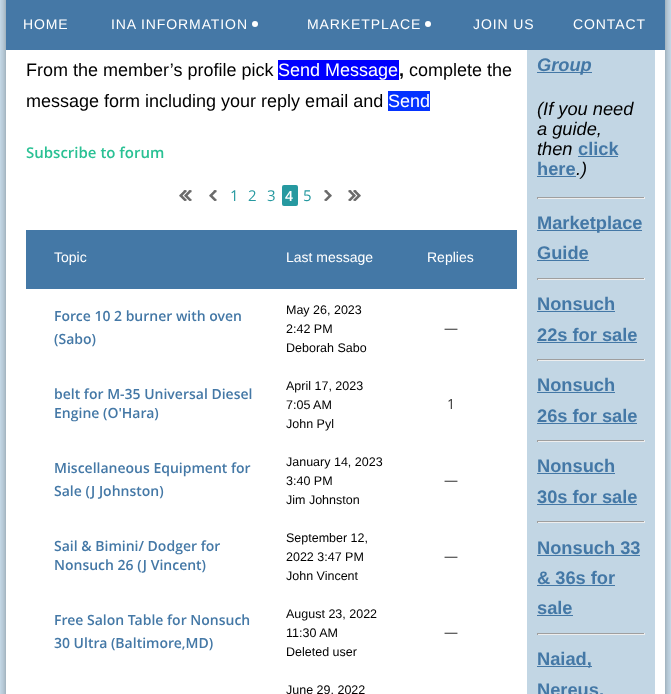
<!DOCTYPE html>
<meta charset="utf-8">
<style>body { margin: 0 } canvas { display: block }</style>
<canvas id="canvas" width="671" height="694"></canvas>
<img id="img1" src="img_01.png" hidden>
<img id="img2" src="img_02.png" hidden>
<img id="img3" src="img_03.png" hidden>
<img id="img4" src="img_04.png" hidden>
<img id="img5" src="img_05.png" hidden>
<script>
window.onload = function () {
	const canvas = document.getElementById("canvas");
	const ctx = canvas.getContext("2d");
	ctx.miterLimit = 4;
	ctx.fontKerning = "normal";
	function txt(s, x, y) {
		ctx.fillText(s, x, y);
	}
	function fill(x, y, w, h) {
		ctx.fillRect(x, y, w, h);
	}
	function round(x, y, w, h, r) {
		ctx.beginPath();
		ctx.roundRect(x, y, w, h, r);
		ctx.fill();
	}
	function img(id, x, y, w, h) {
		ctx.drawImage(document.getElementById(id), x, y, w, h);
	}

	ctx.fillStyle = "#C2D6E4";
	fill(0, 0, 671, 694);
	img("img1", 1, 0, 669, 694);
	ctx.fillStyle = "#4578A6";
	fill(6, 0, 659, 50);
	ctx.fillStyle = "#FFFFFF";
	ctx.beginPath();
	ctx.arc(255, 24, 3, 0, Math.PI * 2);
	ctx.fill();
	ctx.beginPath();
	ctx.arc(428, 24, 3, 0, Math.PI * 2);
	ctx.fill();
	fill(6, 50, 659, 644);
	ctx.fillStyle = "#0000FF";
	fill(278, 60, 121, 20);
	ctx.fillStyle = "#0433FF";
	fill(388, 91, 42, 20);
	img("img2", 179, 190, 13, 11);
	img("img3", 209, 190, 8, 11);
	ctx.fillStyle = "#2699A0";
	round(282, 185, 16, 21, 2);
	img("img4", 324, 190, 8, 11);
	img("img5", 348, 190, 13, 11);
	ctx.fillStyle = "#4478A6";
	fill(26, 230, 491, 59);
	ctx.fillStyle = "#C2D6E4";
	fill(527, 50, 128, 644);
	ctx.fillStyle = "#4478A6";
	fill(537, 72, 55, 1);
	fill(578, 156, 40, 1);
	fill(537, 176, 39, 1);
	ctx.fillStyle = "#9F9F9F";
	fill(537, 197, 108, 1);
	ctx.fillStyle = "#EEEEEE";
	fill(644, 197, 1, 2);
	fill(537, 198, 108, 1);
	ctx.fillStyle = "#9F9F9F";
	fill(537, 197, 1, 2);
	ctx.fillStyle = "#4478A6";
	fill(537, 230, 105, 1);
	fill(537, 260, 52, 1);
	ctx.fillStyle = "#9F9F9F";
	fill(537, 278, 108, 1);
	ctx.fillStyle = "#EEEEEE";
	fill(644, 278, 1, 2);
	fill(537, 279, 108, 1);
	ctx.fillStyle = "#9F9F9F";
	fill(537, 278, 1, 2);
	ctx.fillStyle = "#4478A6";
	fill(537, 311, 78, 1);
	fill(537, 342, 100, 1);
	ctx.fillStyle = "#9F9F9F";
	fill(537, 359, 108, 1);
	ctx.fillStyle = "#EEEEEE";
	fill(644, 359, 1, 2);
	fill(537, 360, 108, 1);
	ctx.fillStyle = "#9F9F9F";
	fill(537, 359, 1, 2);
	ctx.fillStyle = "#4478A6";
	fill(537, 392, 78, 1);
	fill(537, 423, 100, 1);
	ctx.fillStyle = "#9F9F9F";
	fill(537, 440, 108, 1);
	ctx.fillStyle = "#EEEEEE";
	fill(644, 440, 1, 2);
	fill(537, 441, 108, 1);
	ctx.fillStyle = "#9F9F9F";
	fill(537, 440, 1, 2);
	ctx.fillStyle = "#4478A6";
	fill(537, 473, 78, 1);
	fill(537, 504, 100, 1);
	ctx.fillStyle = "#9F9F9F";
	fill(537, 521, 108, 1);
	ctx.fillStyle = "#EEEEEE";
	fill(644, 521, 1, 2);
	fill(537, 522, 108, 1);
	ctx.fillStyle = "#9F9F9F";
	fill(537, 521, 1, 2);
	ctx.fillStyle = "#4478A6";
	fill(537, 555, 103, 1);
	fill(537, 585, 78, 1);
	fill(537, 615, 36, 1);
	ctx.fillStyle = "#9F9F9F";
	fill(537, 633, 108, 1);
	ctx.fillStyle = "#EEEEEE";
	fill(644, 633, 1, 2);
	fill(537, 634, 108, 1);
	ctx.fillStyle = "#9F9F9F";
	fill(537, 633, 1, 2);
	ctx.fillStyle = "#4478A6";
	fill(537, 666, 55, 1);
	ctx.letterSpacing = "0.9px";
	ctx.font = "14px Liberation Sans";
	ctx.fillStyle = "#FFFFFF";
	txt("HOME", 23, 29);
	txt("INA INFORMATION", 111, 29);
	txt("MARKETPLACE", 307, 29);
	txt("JOIN US", 473, 29);
	txt("CONTACT", 573, 29);
	ctx.letterSpacing = "0px";
	ctx.font = "18px Liberation Sans";
	ctx.fillStyle = "#000000";
	txt("From the member’s profile pick", 26, 76);
	ctx.fillStyle = "#FFFFFF";
	txt("Send Message", 278, 76);
	ctx.font = "bold 18px Liberation Sans";
	ctx.fillStyle = "#000000";
	txt(",", 399, 76);
	ctx.font = "18px Liberation Sans";
	txt("complete the", 409, 76);
	txt("message form including your reply email and", 26, 107);
	ctx.fillStyle = "#FFFFFF";
	txt("Send", 388, 107);
	ctx.font = "600 15px Open Sans";
	ctx.fillStyle = "#2AC194";
	txt("Subscribe to forum", 26, 158);
	ctx.font = "15px Open Sans";
	ctx.fillStyle = "#2699A0";
	txt("1", 230, 201);
	txt("2", 248, 201);
	txt("3", 267, 201);
	ctx.font = "600 14px Open Sans";
	ctx.fillStyle = "#FFFFFF";
	txt("4", 285, 201);
	ctx.font = "15px Open Sans";
	ctx.fillStyle = "#2699A0";
	txt("5", 303, 201);
	ctx.font = "14px Liberation Sans";
	ctx.fillStyle = "#FFFFFF";
	txt("Topic", 54, 262);
	txt("Last message", 286, 262);
	txt("Replies", 427, 262);
	ctx.font = "600 14px Open Sans";
	ctx.fillStyle = "#4478A6";
	txt("Force 10 2 burner with oven", 54, 321);
	txt("(Sabo)", 54, 344);
	ctx.font = "12.5px Liberation Sans";
	ctx.fillStyle = "#000000";
	txt("May 26, 2023", 286, 314);
	txt("2:42 PM", 286, 333);
	txt("Deborah Sabo", 286, 352);
	ctx.font = "14px Open Sans";
	ctx.fillStyle = "#333333";
	txt("—", 444, 333);
	ctx.font = "600 14px Open Sans";
	ctx.fillStyle = "#4478A6";
	txt("belt for M-35 Universal Diesel", 54, 399);
	txt("Engine (O'Hara)", 54, 418);
	ctx.font = "12.5px Liberation Sans";
	ctx.fillStyle = "#000000";
	txt("April 17, 2023", 286, 390);
	txt("7:05 AM", 286, 409);
	txt("John Pyl", 286, 428);
	ctx.font = "14px Open Sans";
	ctx.fillStyle = "#333333";
	txt("1", 447, 409);
	ctx.font = "600 14px Open Sans";
	ctx.fillStyle = "#4478A6";
	txt("Miscellaneous Equipment for", 54, 473);
	txt("Sale (J Johnston)", 54, 496);
	ctx.font = "12.5px Liberation Sans";
	ctx.fillStyle = "#000000";
	txt("January 14, 2023", 286, 466);
	txt("3:40 PM", 286, 485);
	txt("Jim Johnston", 286, 504);
	ctx.font = "14px Open Sans";
	ctx.fillStyle = "#333333";
	txt("—", 444, 485);
	ctx.font = "600 14px Open Sans";
	ctx.fillStyle = "#4478A6";
	txt("Sail & Bimini/ Dodger for", 54, 551);
	txt("Nonsuch 26 (J Vincent)", 54, 570);
	ctx.font = "12.5px Liberation Sans";
	ctx.fillStyle = "#000000";
	txt("September 12,", 286, 542);
	txt("2022 3:47 PM", 286, 561);
	txt("John Vincent", 286, 580);
	ctx.font = "14px Open Sans";
	ctx.fillStyle = "#333333";
	txt("—", 444, 561);
	ctx.font = "600 14px Open Sans";
	ctx.fillStyle = "#4478A6";
	txt("Free Salon Table for Nonsuch", 54, 625);
	txt("30 Ultra (Baltimore,MD)", 54, 648);
	ctx.font = "12.5px Liberation Sans";
	ctx.fillStyle = "#000000";
	txt("August 23, 2022", 286, 618);
	txt("11:30 AM", 286, 637);
	txt("Deleted user", 286, 656);
	ctx.font = "14px Open Sans";
	ctx.fillStyle = "#333333";
	txt("—", 444, 637);
	ctx.font = "12.5px Liberation Sans";
	ctx.fillStyle = "#000000";
	txt("June 29, 2022", 286, 694);
	ctx.font = "italic bold 18.25px Liberation Sans";
	ctx.fillStyle = "#4478A6";
	txt("Group", 537, 71);
	ctx.font = "italic 18.25px Liberation Sans";
	ctx.fillStyle = "#000000";
	txt("(If you need", 537, 115);
	txt("a guide,", 537, 135);
	txt("then", 537, 155);
	ctx.font = "bold 18.25px Liberation Sans";
	ctx.fillStyle = "#4478A6";
	txt("click", 578, 155);
	txt("here", 537, 175);
	ctx.font = "italic 18.25px Liberation Sans";
	ctx.fillStyle = "#000000";
	txt(".)", 576, 175);
	ctx.font = "bold 18.25px Liberation Sans";
	ctx.fillStyle = "#4478A6";
	txt("Marketplace", 537, 229);
	txt("Guide", 537, 259);
	txt("Nonsuch", 537, 310);
	txt("22s for sale", 537, 341);
	txt("Nonsuch", 537, 391);
	txt("26s for sale", 537, 422);
	txt("Nonsuch", 537, 472);
	txt("30s for sale", 537, 503);
	txt("Nonsuch 33", 537, 554);
	txt("& 36s for", 537, 584);
	txt("sale", 537, 614);
	txt("Naiad,", 537, 665);
	txt("Nereus,", 537, 696);
};
</script>
